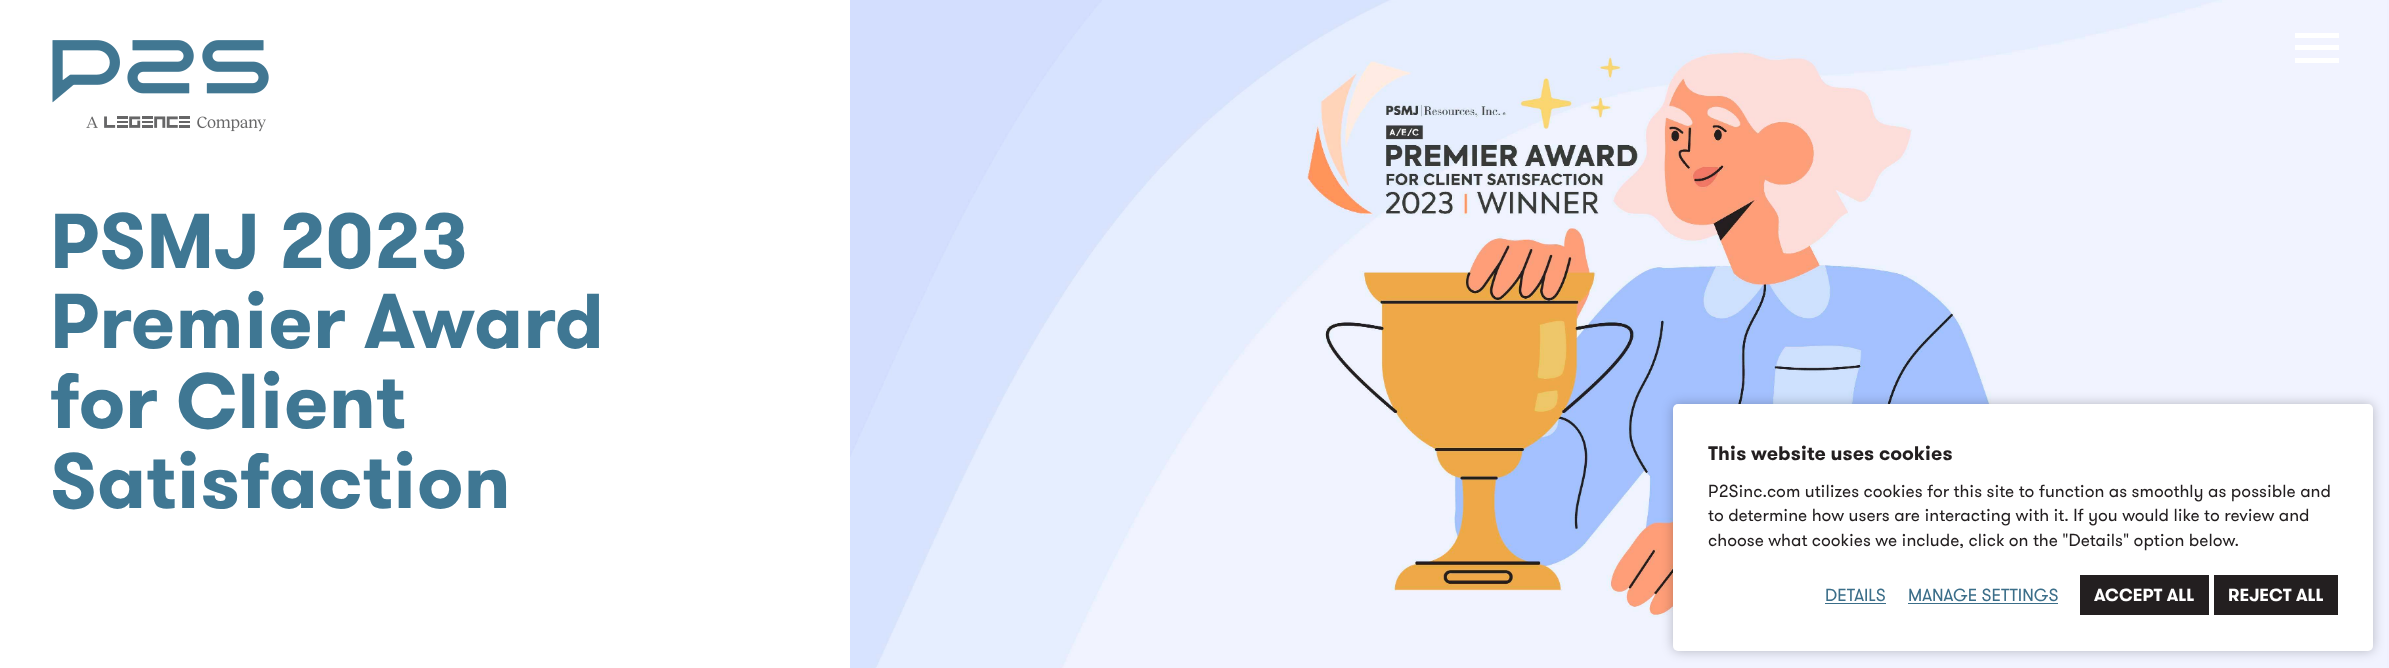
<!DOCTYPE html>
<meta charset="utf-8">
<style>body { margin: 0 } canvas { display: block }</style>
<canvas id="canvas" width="2389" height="668"></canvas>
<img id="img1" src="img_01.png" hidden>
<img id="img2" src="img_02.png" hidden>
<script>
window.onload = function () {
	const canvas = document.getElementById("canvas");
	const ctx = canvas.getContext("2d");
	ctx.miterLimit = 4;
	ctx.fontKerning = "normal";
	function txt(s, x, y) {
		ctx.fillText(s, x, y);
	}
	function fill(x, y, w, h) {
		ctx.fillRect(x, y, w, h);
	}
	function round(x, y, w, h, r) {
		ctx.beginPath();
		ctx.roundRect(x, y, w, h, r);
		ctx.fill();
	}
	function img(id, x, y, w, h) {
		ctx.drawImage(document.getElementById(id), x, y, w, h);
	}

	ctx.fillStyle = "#FFFFFF";
	fill(0, 0, 2389, 668);
	img("img1", 52, 40, 217, 92);
	img("img2", 850, 0, 1539, 668);
	fill(2295, 45, 44, 5);
	fill(2295, 33, 44, 5);
	fill(2295, 58, 44, 5);
	ctx.fillStyle = "rgba(0, 0, 0, 0.25)";
	ctx.filter = "blur(6px)";
	ctx.beginPath();
	ctx.roundRect(1673, 404, 700, 247, 5);
	ctx.fill();
	ctx.filter = "none";
	ctx.fillStyle = "#FFFFFF";
	round(1673, 404, 700, 247, 5);
	ctx.fillStyle = "#3B6E89";
	fill(1825, 603, 61, 1);
	fill(1908, 603, 150, 1);
	ctx.fillStyle = "#231F20";
	fill(2080, 575, 129, 40);
	fill(2214, 575, 124, 40);
	ctx.font = "bold 77.5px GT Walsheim";
	ctx.fillStyle = "#3F7793";
	txt("PSMJ 2023", 50, 268);
	txt("Premier Award", 50, 348);
	txt("for Client", 50, 428);
	txt("Satisfaction", 50, 508);
	ctx.font = "bold 19.75px GT Walsheim";
	ctx.fillStyle = "#231F20";
	txt("This website uses cookies", 1708, 460);
	ctx.font = "17.5px GT Walsheim";
	txt("P2Sinc.com utilizes cookies for this site to function as smoothly as possible and", 1708, 497);
	txt("to determine how users are interacting with it. If you would like to review and", 1708, 521);
	txt("choose what cookies we include, click on the \"Details\" option below.", 1708, 546);
	ctx.fillStyle = "#3B6E89";
	txt("DETAILS", 1825, 601);
	txt("MANAGE SETTINGS", 1908, 601);
	ctx.font = "bold 17.5px GT Walsheim";
	ctx.fillStyle = "#FFFFFF";
	txt("ACCEPT ALL", 2094, 601);
	txt("REJECT ALL", 2228, 601);
};
</script>
